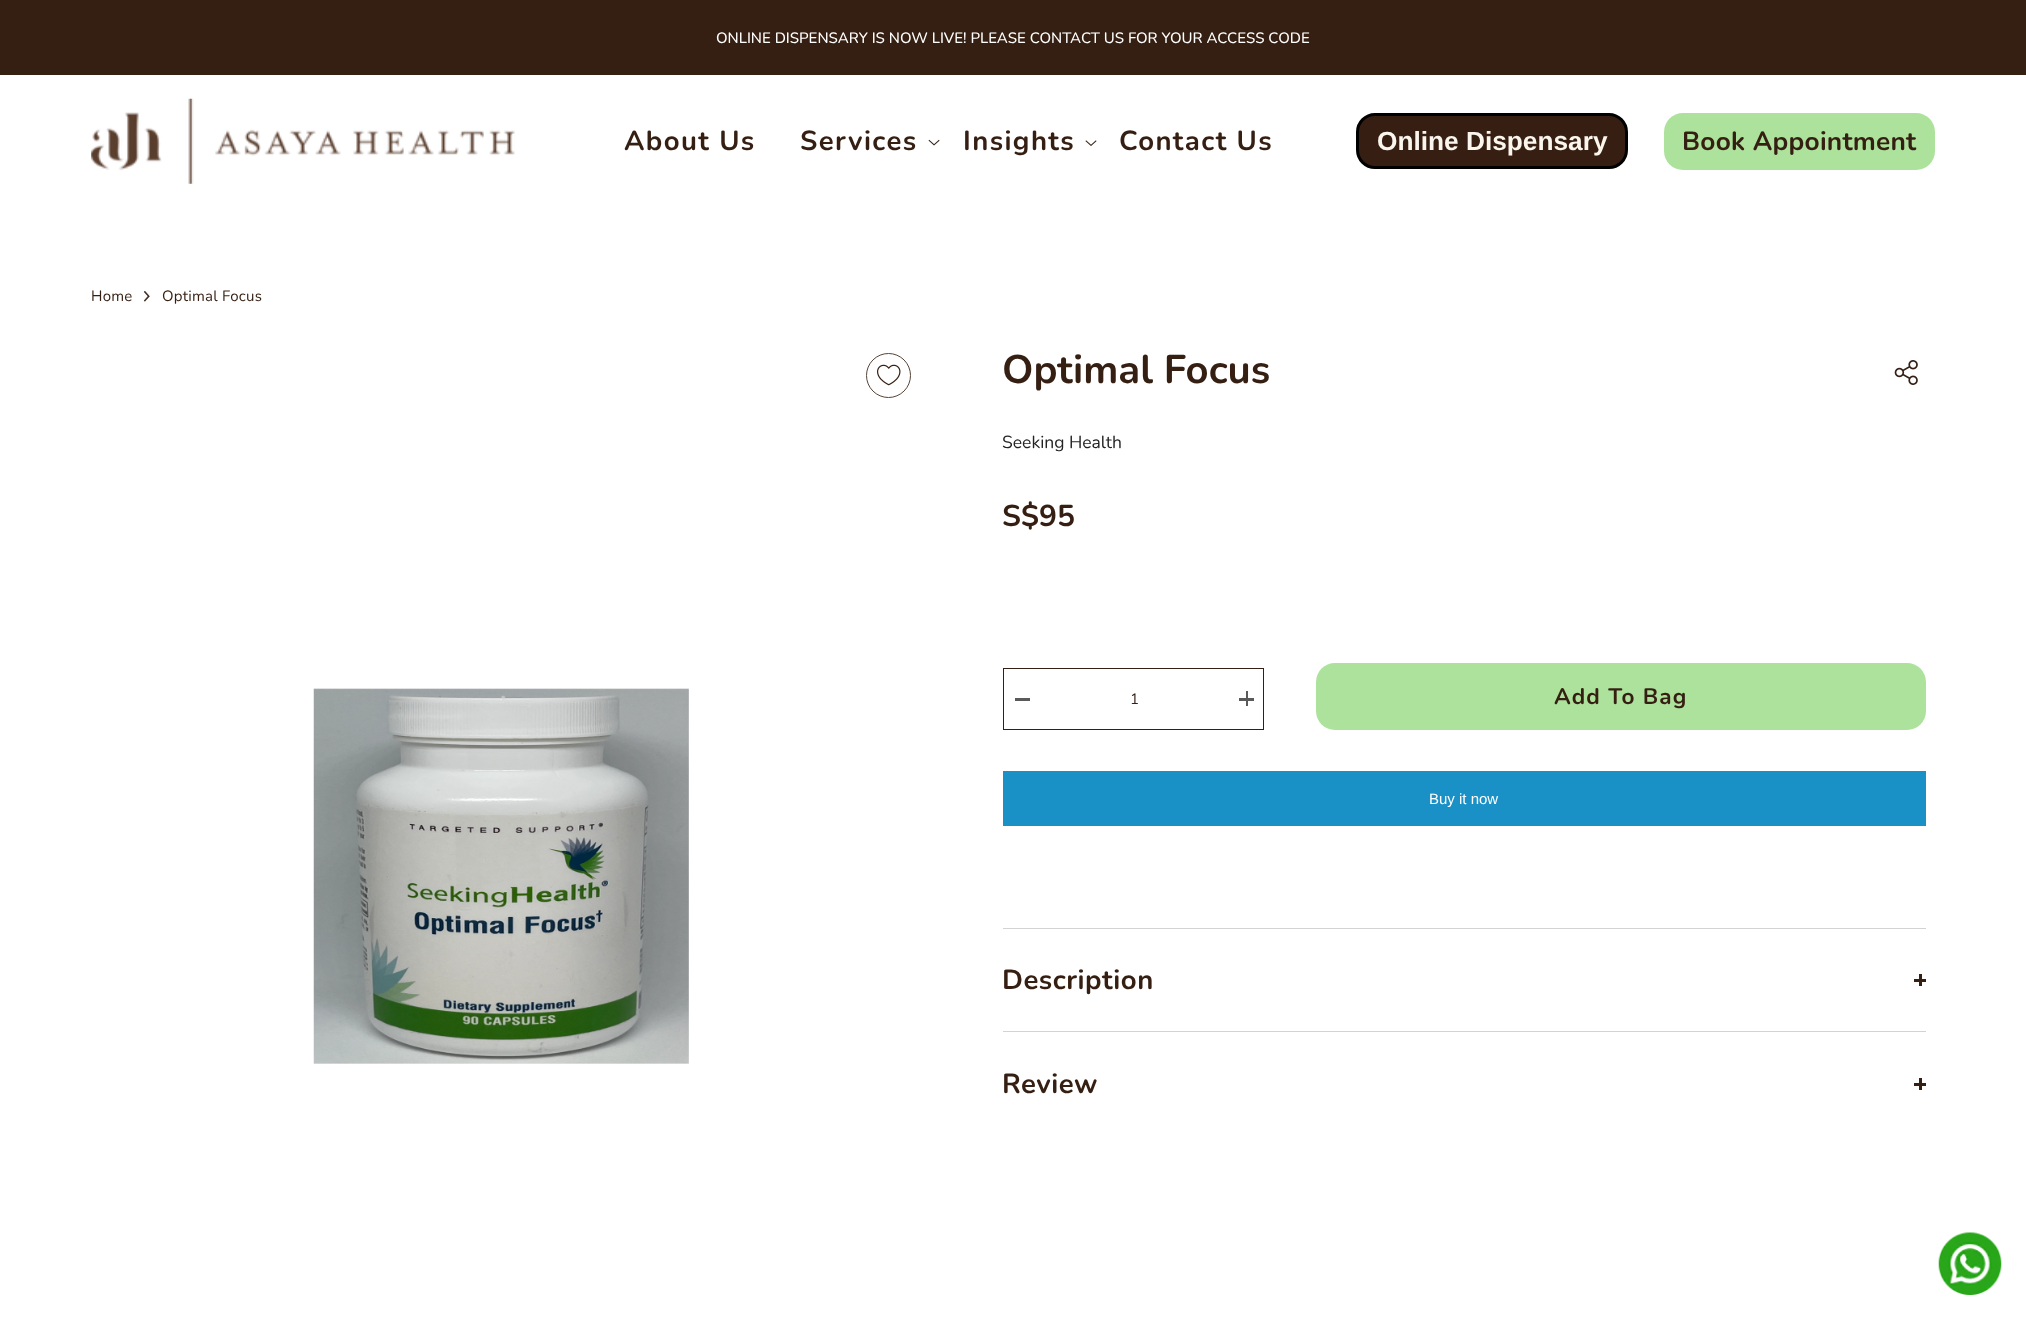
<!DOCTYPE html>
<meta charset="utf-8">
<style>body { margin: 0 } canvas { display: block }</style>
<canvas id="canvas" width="2026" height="1320"></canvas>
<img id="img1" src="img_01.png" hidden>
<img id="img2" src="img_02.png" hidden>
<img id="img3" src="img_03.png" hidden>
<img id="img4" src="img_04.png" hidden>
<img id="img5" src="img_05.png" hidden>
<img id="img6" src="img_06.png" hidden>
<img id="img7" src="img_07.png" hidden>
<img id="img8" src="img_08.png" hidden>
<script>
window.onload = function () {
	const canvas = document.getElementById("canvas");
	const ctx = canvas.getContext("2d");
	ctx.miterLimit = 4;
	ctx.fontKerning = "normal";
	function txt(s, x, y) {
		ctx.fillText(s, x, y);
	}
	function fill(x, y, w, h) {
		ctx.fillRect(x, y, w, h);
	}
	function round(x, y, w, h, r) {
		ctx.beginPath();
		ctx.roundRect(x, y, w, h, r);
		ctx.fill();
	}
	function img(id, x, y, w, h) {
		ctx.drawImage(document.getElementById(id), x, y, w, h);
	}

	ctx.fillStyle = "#FFFFFF";
	fill(0, 0, 2026, 1320);
	ctx.fillStyle = "#351F12";
	fill(0, 0, 2026, 75);
	img("img1", 91, 98, 424, 86);
	img("img2", 928, 139, 12, 7);
	img("img3", 1085, 140, 12, 6);
	ctx.fillStyle = "#361F12";
	ctx.beginPath();
	ctx.roundRect(1357.5, 114.5, 269, 53, 17.5);
	ctx.fill();
	ctx.strokeStyle = "#000000";
	ctx.lineWidth = 3;
	ctx.stroke();
	ctx.fillStyle = "#ADE29C";
	round(1664, 113, 271, 57, 19);
	img("img4", 143, 291, 7, 11);
	ctx.beginPath();
	ctx.arc(888.5, 375.5, 22, 0, Math.PI * 2);
	ctx.strokeStyle = "#564439";
	ctx.lineWidth = 1;
	ctx.stroke();
	img("img5", 877, 364, 24, 22);
	img("img6", 313, 688, 376, 376);
	img("img7", 1894, 360, 24, 25);
	ctx.strokeStyle = "#351F12";
	ctx.strokeRect(1003.5, 668.5, 260, 61);
	ctx.fillStyle = "#5A5A5A";
	fill(1015, 698, 15, 3);
	fill(1239, 698, 15, 3);
	fill(1246, 691, 2, 15);
	ctx.fillStyle = "#ADE29C";
	round(1316, 663, 610, 67, 19);
	ctx.fillStyle = "#1990C6";
	fill(1003, 771, 923, 55);
	ctx.fillStyle = "#D3D3D3";
	fill(1003, 928, 923, 1);
	ctx.fillStyle = "#351F12";
	fill(1919, 974, 3, 12);
	fill(1914, 979, 12, 3);
	ctx.fillStyle = "#D3D3D3";
	fill(1003, 1031, 923, 1);
	ctx.fillStyle = "#351F12";
	fill(1919, 1078, 3, 12);
	fill(1914, 1083, 12, 3);
	img("img8", 1938, 1232, 64, 63);
	ctx.font = "500 15px Nunito";
	ctx.fillStyle = "#FFFFFF";
	txt("ONLINE DISPENSARY IS NOW LIVE! PLEASE CONTACT US FOR YOUR ACCESS CODE", 716, 43);
	ctx.letterSpacing = "1.4px";
	ctx.font = "bold 27.5px Nunito";
	ctx.fillStyle = "#351F12";
	txt("About Us", 624, 150);
	txt("Services", 800, 150);
	txt("Insights", 963, 150);
	txt("Contact Us", 1119, 150);
	ctx.letterSpacing = "0px";
	ctx.font = "bold 26.25px Liberation Sans";
	ctx.fillStyle = "#FAF6ED";
	txt("Online Dispensary", 1377, 150);
	ctx.letterSpacing = "0.25px";
	ctx.font = "bold 26.25px Nunito";
	ctx.fillStyle = "#351F12";
	txt("Book Appointment", 1682, 150);
	ctx.font = "15px Nunito";
	txt("Home", 91, 301);
	txt("Optimal Focus", 162, 301);
	ctx.letterSpacing = "0px";
	ctx.font = "bold 40px Nunito";
	txt("Optimal Focus", 1002, 383);
	ctx.font = "17.5px Nunito";
	ctx.fillStyle = "#232323";
	txt("Seeking Health", 1002, 448);
	ctx.font = "bold 30px Nunito";
	ctx.fillStyle = "#351F12";
	txt("S$95", 1002, 526);
	ctx.letterSpacing = "0.25px";
	ctx.font = "15px Nunito";
	txt("1", 1130, 704);
	ctx.letterSpacing = "1.1px";
	ctx.font = "bold 22.5px Nunito";
	txt("Add To Bag", 1554, 704);
	ctx.letterSpacing = "0px";
	ctx.font = "15px Liberation Sans";
	ctx.fillStyle = "#FFFFFF";
	txt("Buy it now", 1429, 804);
	ctx.letterSpacing = "0.5px";
	ctx.font = "bold 27.5px Nunito";
	ctx.fillStyle = "#351F12";
	txt("Description", 1002, 989);
	txt("Review", 1002, 1093);
};
</script>
